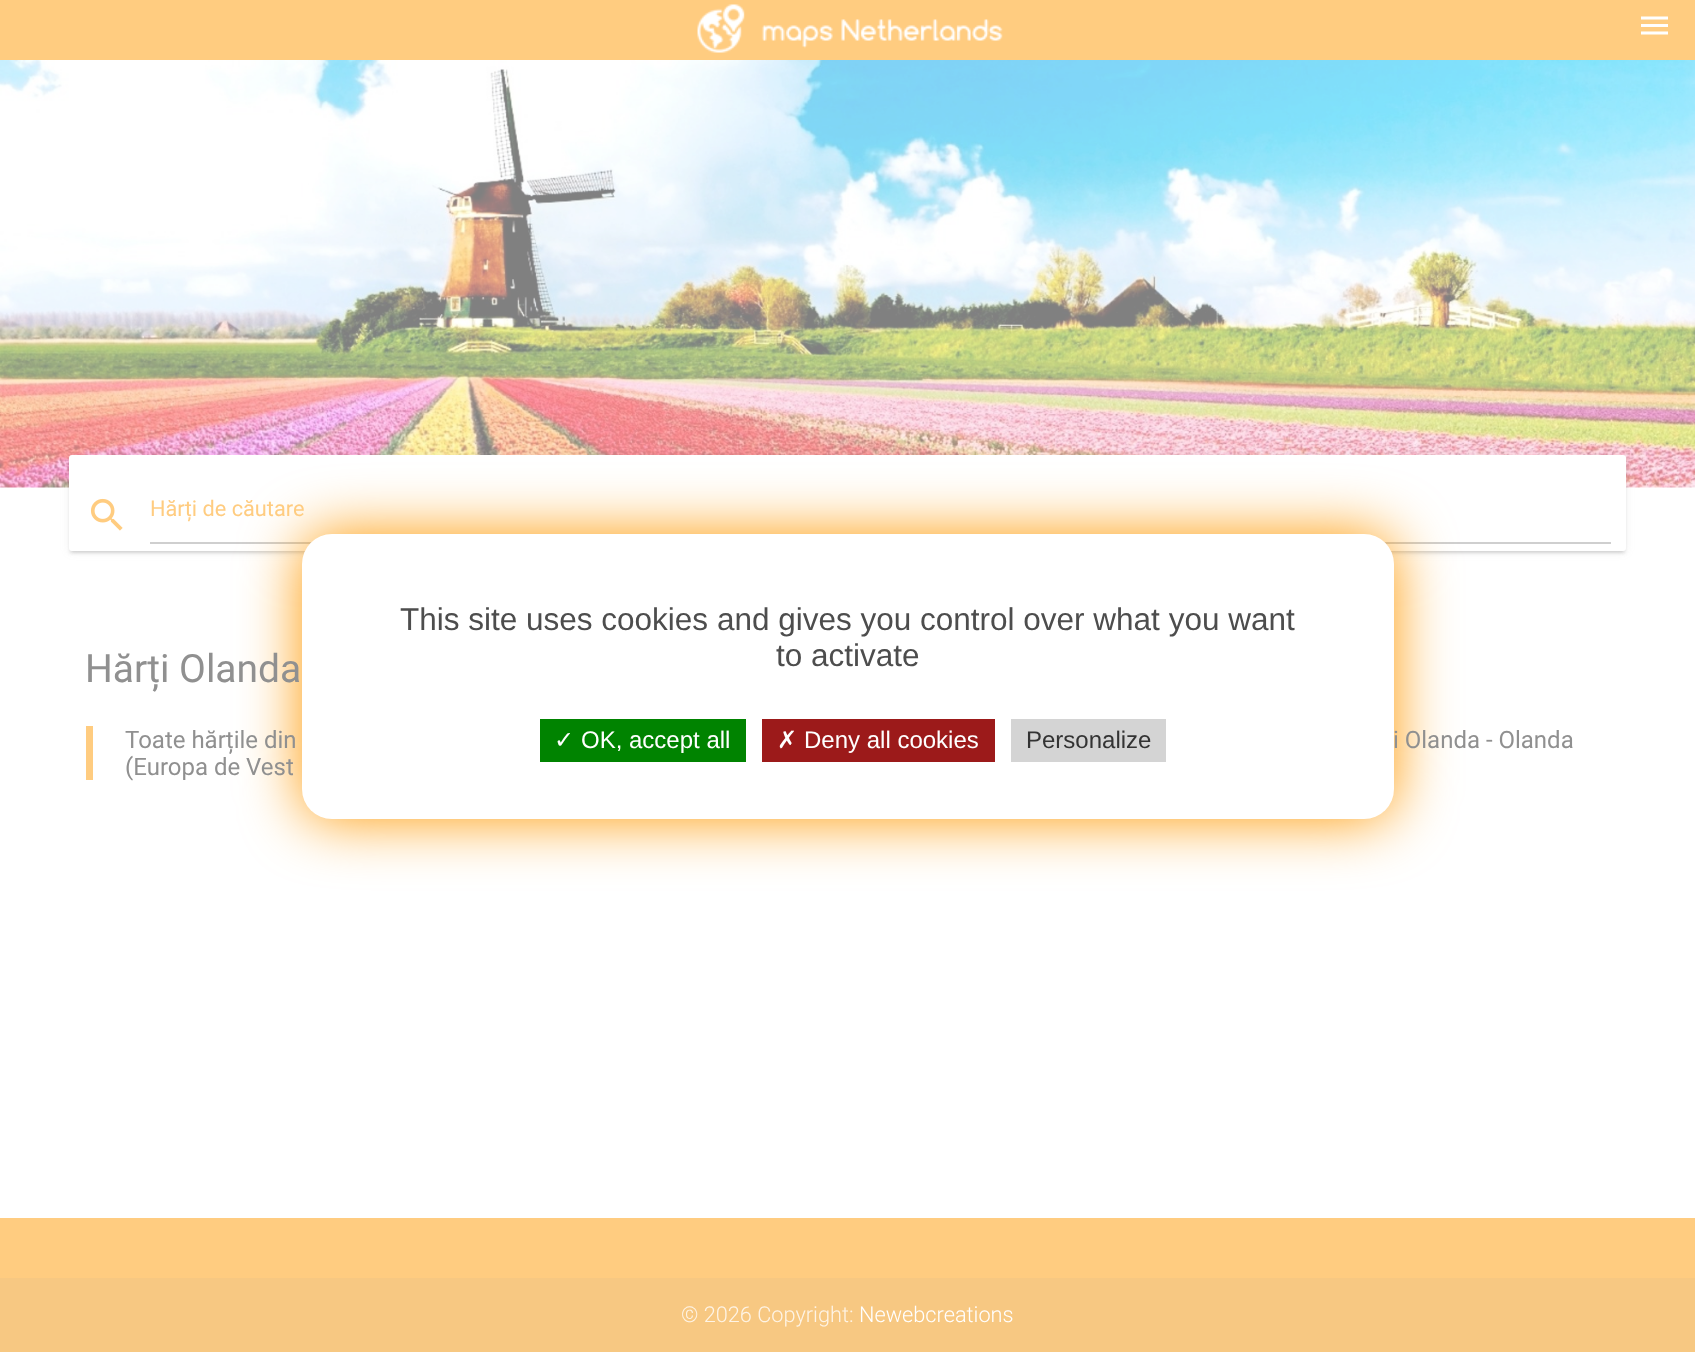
<!DOCTYPE html>
<meta charset="utf-8">
<style>body { margin: 0 } canvas { display: block }</style>
<canvas id="canvas" width="1695" height="1352"></canvas>
<img id="img1" src="img_01.png" hidden>
<img id="img2" src="img_02.png" hidden>
<img id="img3" src="img_03.png" hidden>
<img id="img4" src="img_04.png" hidden>
<script>
window.onload = function () {
	const canvas = document.getElementById("canvas");
	const ctx = canvas.getContext("2d");
	ctx.miterLimit = 4;
	ctx.fontKerning = "normal";
	function txt(s, x, y) {
		ctx.fillText(s, x, y);
	}
	function fill(x, y, w, h) {
		ctx.fillRect(x, y, w, h);
	}
	function round(x, y, w, h, r) {
		ctx.beginPath();
		ctx.roundRect(x, y, w, h, r);
		ctx.fill();
	}
	function img(id, x, y, w, h) {
		ctx.drawImage(document.getElementById(id), x, y, w, h);
	}

	ctx.fillStyle = "#FFFFFF";
	fill(0, 0, 1695, 1352);
	ctx.fillStyle = "#FFCC80";
	fill(0, 0, 1695, 60);
	img("img1", 697, 4, 306, 49);
	img("img2", 1641, 16, 27, 19);
	img("img3", 0, 60, 1695, 428);
	ctx.fillStyle = "rgba(128, 128, 128, 0.2)";
	ctx.filter = "blur(1px)";
	ctx.beginPath();
	ctx.rect(72, 462, 1551, 90);
	ctx.fill();
	ctx.filter = "none";
	ctx.fillStyle = "rgba(128, 128, 128, 0.12)";
	ctx.filter = "blur(4px)";
	ctx.beginPath();
	ctx.roundRect(69, 456, 1557, 96, 3);
	ctx.fill();
	ctx.filter = "none";
	ctx.fillStyle = "rgba(128, 128, 128, 0.14)";
	ctx.filter = "blur(1.5px)";
	ctx.beginPath();
	ctx.roundRect(69, 458, 1557, 96, 3);
	ctx.fill();
	ctx.filter = "none";
	ctx.fillStyle = "#FFFFFF";
	round(69, 455, 1557, 96, 3);
	img("img4", 90, 498, 33, 33);
	ctx.fillStyle = "#CFCFCF";
	fill(150, 542, 1461, 2);
	ctx.fillStyle = "#FFCC80";
	fill(86, 726, 7, 54);
	ctx.fillStyle = "#FF9800";
	ctx.filter = "blur(30px)";
	ctx.beginPath();
	ctx.roundRect(302, 534, 1092, 285, 30);
	ctx.fill();
	ctx.filter = "none";
	ctx.fillStyle = "#FFFFFF";
	round(302, 534, 1092, 285, 30);
	ctx.fillStyle = "#008300";
	fill(540, 719, 206, 43);
	ctx.fillStyle = "#9C1A1A";
	fill(762, 719, 233, 43);
	ctx.fillStyle = "#D4D4D4";
	fill(1011, 719, 155, 43);
	ctx.fillStyle = "#FFCC80";
	fill(0, 1218, 1695, 60);
	ctx.fillStyle = "#F7C882";
	fill(0, 1278, 1695, 74);
	ctx.font = "21.75px Roboto";
	ctx.fillStyle = "#FFCC80";
	txt("Hărți de căutare", 150, 516);
	ctx.font = "39px Roboto";
	ctx.fillStyle = "#909090";
	txt("Hărți Olanda", 85, 682);
	ctx.font = "24px Roboto";
	txt("Toate hărțile din", 125, 748);
	txt("i Olanda - Olanda", 1393, 748);
	txt("(Europa de Vest", 125, 775);
	ctx.font = "31.5px Liberation Sans";
	ctx.fillStyle = "#4D4D4D";
	txt("This site uses cookies and gives you control over what you want", 400, 630);
	txt("to activate", 776, 666);
	ctx.font = "24px DejaVu Sans";
	ctx.fillStyle = "#FFFFFF";
	txt("✓", 554, 748);
	ctx.font = "24px Liberation Sans";
	txt("OK, accept all", 581, 748);
	ctx.font = "24px DejaVu Sans";
	txt("✗", 777, 748);
	ctx.font = "24px Liberation Sans";
	txt("Deny all cookies", 804, 748);
	ctx.fillStyle = "#333333";
	txt("Personalize", 1026, 748);
	ctx.font = "300 21.75px Roboto";
	ctx.fillStyle = "#FEF4E6";
	txt("© 2026 Copyright:", 681, 1322);
	ctx.fillStyle = "#FFFFFF";
	txt("Newebcreations", 859, 1322);
};
</script>
